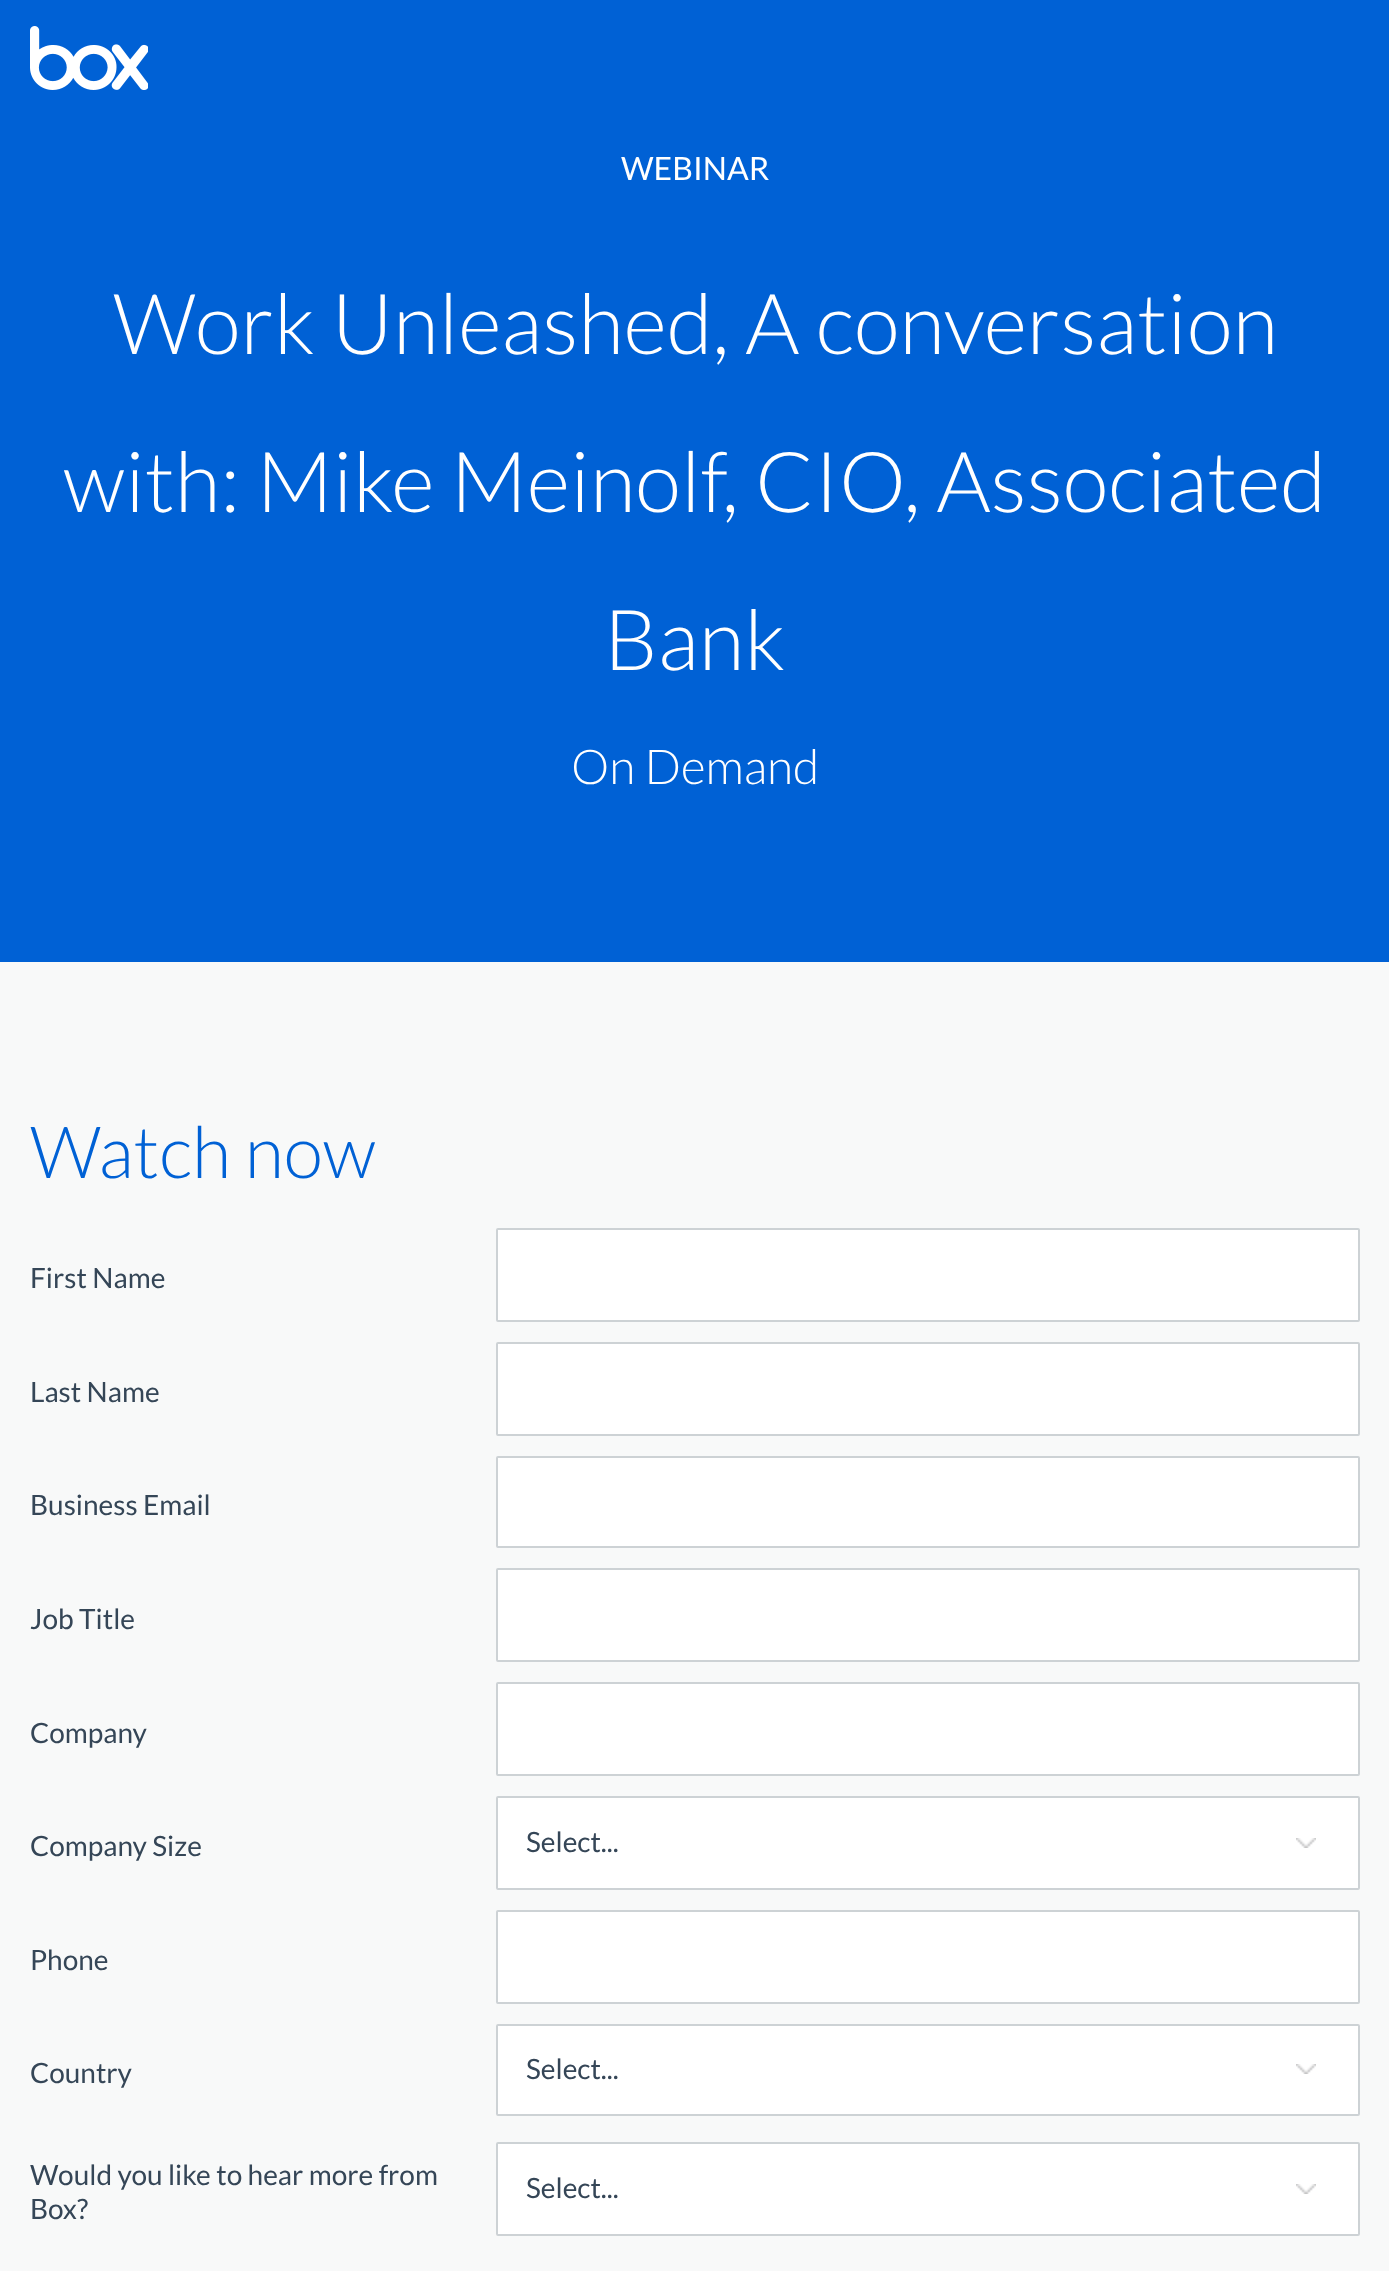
<!DOCTYPE html>
<meta charset="utf-8">
<style>body { margin: 0 } canvas { display: block }</style>
<canvas id="canvas" width="1389" height="2271"></canvas>
<img id="img1" src="img_01.png" hidden>
<img id="img2" src="img_02.png" hidden>
<script>
window.onload = function () {
	const canvas = document.getElementById("canvas");
	const ctx = canvas.getContext("2d");
	ctx.miterLimit = 4;
	ctx.fontKerning = "normal";
	function txt(s, x, y) {
		ctx.fillText(s, x, y);
	}
	function fill(x, y, w, h) {
		ctx.fillRect(x, y, w, h);
	}
	function round(x, y, w, h, r) {
		ctx.beginPath();
		ctx.roundRect(x, y, w, h, r);
		ctx.fill();
	}
	function img(id, x, y, w, h) {
		ctx.drawImage(document.getElementById(id), x, y, w, h);
	}

	ctx.fillStyle = "#0061D5";
	fill(0, 0, 1389, 2271);
	img("img1", 30, 26, 118, 64);
	ctx.fillStyle = "#F8F9F9";
	fill(0, 962, 1389, 1309);
	ctx.fillStyle = "#FFFFFF";
	ctx.beginPath();
	ctx.roundRect(497, 1229, 862, 92, 1);
	ctx.fill();
	ctx.strokeStyle = "#CDD2D5";
	ctx.lineWidth = 2;
	ctx.stroke();
	ctx.beginPath();
	ctx.roundRect(497, 1343, 862, 92, 1);
	ctx.fill();
	ctx.stroke();
	ctx.beginPath();
	ctx.roundRect(497, 1457, 862, 90, 1);
	ctx.fill();
	ctx.stroke();
	ctx.beginPath();
	ctx.roundRect(497, 1569, 862, 92, 1);
	ctx.fill();
	ctx.stroke();
	ctx.beginPath();
	ctx.roundRect(497, 1683, 862, 92, 1);
	ctx.fill();
	ctx.stroke();
	round(496, 1796, 864, 94, 2);
	img("img2", 1296, 1838, 20, 10);
	ctx.beginPath();
	ctx.roundRect(497, 1797, 862, 92, 1);
	ctx.stroke();
	ctx.beginPath();
	ctx.roundRect(497, 1911, 862, 92, 1);
	ctx.fill();
	ctx.stroke();
	round(496, 2024, 864, 92, 2);
	img("img2", 1296, 2064, 20, 10);
	ctx.beginPath();
	ctx.roundRect(497, 2025, 862, 90, 1);
	ctx.stroke();
	round(496, 2142, 864, 94, 2);
	img("img2", 1296, 2184, 20, 10);
	ctx.beginPath();
	ctx.roundRect(497, 2143, 862, 92, 1);
	ctx.stroke();
	ctx.font = "32px Lato";
	txt("WEBINAR", 621, 180);
	ctx.font = "300 84px Lato";
	txt("Work Unleashed, A conversation", 113, 354);
	txt("with: Mike Meinolf, CIO, Associated", 63, 512);
	txt("Bank", 604, 670);
	ctx.font = "300 48px Lato";
	txt("On Demand", 571, 784);
	ctx.font = "300 72px Lato";
	ctx.fillStyle = "#0061D5";
	txt("Watch now", 30, 1178);
	ctx.font = "28px Lato";
	ctx.fillStyle = "#354657";
	txt("First Name", 30, 1288);
	txt("Last Name", 30, 1402);
	txt("Business Email", 30, 1515);
	txt("Job Title", 30, 1629);
	txt("Company", 30, 1743);
	txt("Company Size", 30, 1856);
	txt("Select...", 526, 1852);
	txt("Phone", 30, 1970);
	txt("Country", 30, 2083);
	txt("Select...", 526, 2079);
	txt("Would you like to hear more from", 30, 2185);
	txt("Box?", 30, 2219);
	txt("Select...", 526, 2198);
};
</script>
